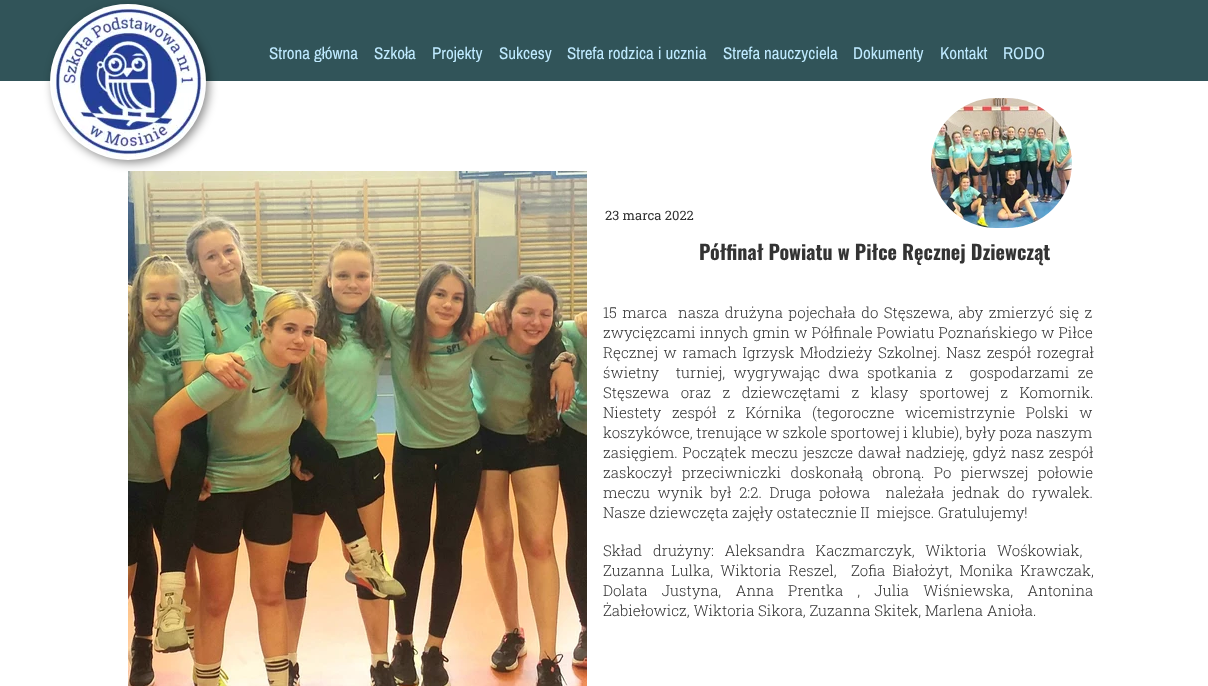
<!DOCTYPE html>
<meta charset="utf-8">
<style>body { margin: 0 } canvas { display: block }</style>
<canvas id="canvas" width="1208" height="686"></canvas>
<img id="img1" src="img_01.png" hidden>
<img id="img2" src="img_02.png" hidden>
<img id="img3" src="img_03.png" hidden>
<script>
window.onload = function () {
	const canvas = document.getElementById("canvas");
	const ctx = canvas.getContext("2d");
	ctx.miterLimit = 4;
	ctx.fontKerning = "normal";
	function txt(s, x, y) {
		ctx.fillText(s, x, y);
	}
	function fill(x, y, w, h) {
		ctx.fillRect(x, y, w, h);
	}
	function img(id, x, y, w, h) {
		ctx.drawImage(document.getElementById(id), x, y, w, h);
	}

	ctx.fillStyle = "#FFFFFF";
	fill(0, 0, 1208, 686);
	ctx.fillStyle = "#315459";
	fill(0, 0, 1208, 81);
	ctx.fillStyle = "rgba(0, 0, 0, 0.44)";
	ctx.filter = "blur(5px)";
	ctx.beginPath();
	ctx.roundRect(53, 7, 156, 156, 78);
	ctx.fill();
	ctx.filter = "none";
	ctx.fillStyle = "#FFFFFF";
	ctx.beginPath();
	ctx.arc(128, 82, 78, 0, Math.PI * 2);
	ctx.fill();
	img("img1", 52, 5, 152, 152);
	img("img2", 128, 171, 459, 515);
	img("img3", 931, 98, 141, 130);
	ctx.font = "17px Archivo Narrow";
	ctx.fillStyle = "#BFEAFF";
	txt("Strona główna", 269, 59);
	txt("Szkoła", 374, 59);
	txt("Projekty", 432, 59);
	txt("Sukcesy", 499, 59);
	txt("Strefa rodzica i ucznia", 567, 59);
	txt("Strefa nauczyciela", 723, 59);
	txt("Dokumenty", 853, 59);
	txt("Kontakt", 940, 59);
	txt("RODO", 1003, 59);
	ctx.font = "13px Roboto Slab";
	ctx.fillStyle = "#333333";
	txt("23 marca 2022", 605, 220);
	ctx.font = "bold 20px Oswald";
	txt("Półfinał Powiatu w Piłce Ręcznej Dziewcząt", 699, 260);
	ctx.wordSpacing = "1.75px";
	ctx.font = "300 15px Roboto Slab";
	txt("15 marca  nasza drużyna pojechała do Stęszewa, aby zmierzyć się z", 603, 318);
	ctx.wordSpacing = "0.5px";
	txt("zwycięzcami innych gmin w Półfinale Powiatu Poznańskiego w Piłce", 603, 338);
	ctx.wordSpacing = "2px";
	txt("Ręcznej w ramach Igrzysk Młodzieży Szkolnej. Nasz zespół rozegrał", 603, 358);
	ctx.wordSpacing = "4.75px";
	txt("świetny  turniej, wygrywając dwa spotkania z  gospodarzami ze", 603, 378);
	ctx.wordSpacing = "7.75px";
	txt("Stęszewa oraz z dziewczętami z klasy sportowej z Komornik.", 603, 398);
	ctx.wordSpacing = "7px";
	txt("Niestety zespół z Kórnika (tegoroczne wicemistrzynie Polski w", 603, 418);
	ctx.wordSpacing = "0px";
	txt("koszykówce, trenujące w szkole sportowej i klubie), były poza naszym", 603, 438);
	ctx.wordSpacing = "1.25px";
	txt("zasięgiem. Początek meczu jeszcze dawał nadzieję, gdyż nasz zespół", 603, 458);
	ctx.wordSpacing = "5.75px";
	txt("zaskoczył przeciwniczki doskonałą obroną. Po pierwszej połowie", 603, 478);
	ctx.wordSpacing = "4px";
	txt("meczu wynik był 2:2. Druga połowa  należała jednak do rywalek.", 603, 498);
	ctx.wordSpacing = "0px";
	txt("Nasze dziewczęta zajęły ostatecznie II  miejsce. Gratulujemy!", 603, 518);
	ctx.wordSpacing = "7px";
	txt("Skład drużyny: Aleksandra Kaczmarczyk, Wiktoria Wośkowiak,", 603, 556);
	ctx.wordSpacing = "3.5px";
	txt("Zuzanna Lulka, Wiktoria Reszel,  Zofia Białożyt, Monika Krawczak,", 603, 576);
	ctx.wordSpacing = "10.5px";
	txt("Dolata Justyna, Anna Prentka , Julia Wiśniewska, Antonina", 603, 596);
	ctx.wordSpacing = "0px";
	txt("Żabiełowicz, Wiktoria Sikora, Zuzanna Skitek, Marlena Anioła.", 603, 616);
};
</script>
